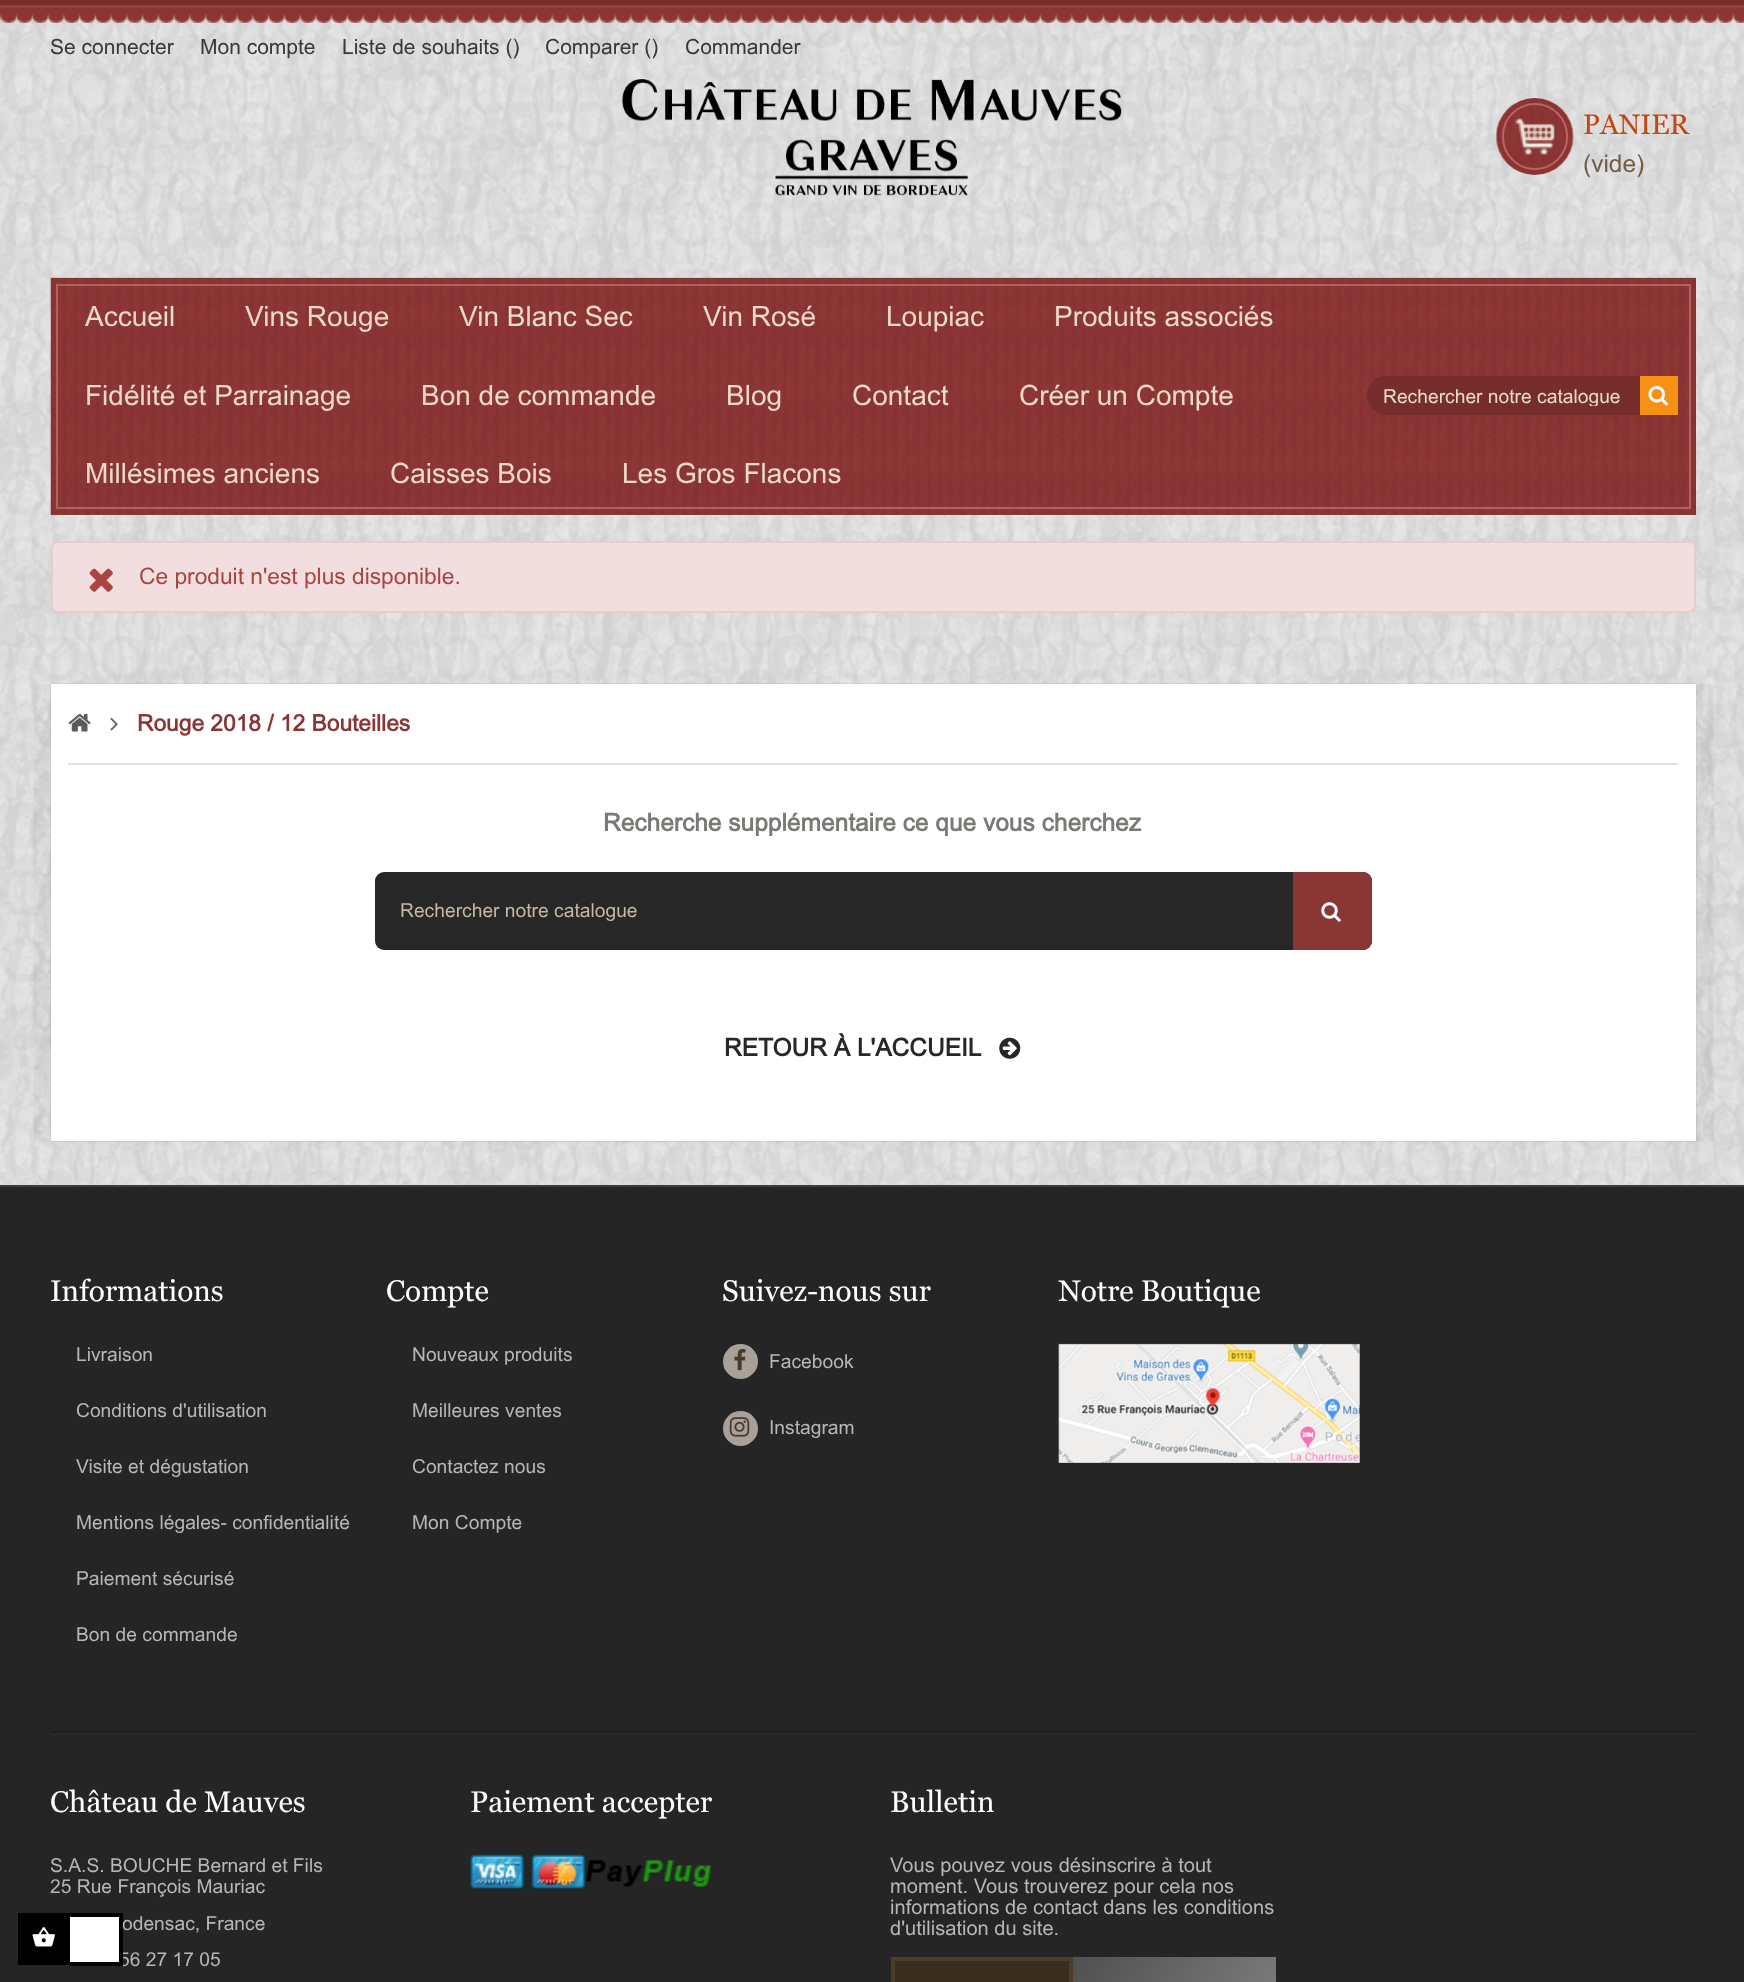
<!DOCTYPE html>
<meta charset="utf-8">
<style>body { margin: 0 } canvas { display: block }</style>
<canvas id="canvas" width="1744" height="1982"></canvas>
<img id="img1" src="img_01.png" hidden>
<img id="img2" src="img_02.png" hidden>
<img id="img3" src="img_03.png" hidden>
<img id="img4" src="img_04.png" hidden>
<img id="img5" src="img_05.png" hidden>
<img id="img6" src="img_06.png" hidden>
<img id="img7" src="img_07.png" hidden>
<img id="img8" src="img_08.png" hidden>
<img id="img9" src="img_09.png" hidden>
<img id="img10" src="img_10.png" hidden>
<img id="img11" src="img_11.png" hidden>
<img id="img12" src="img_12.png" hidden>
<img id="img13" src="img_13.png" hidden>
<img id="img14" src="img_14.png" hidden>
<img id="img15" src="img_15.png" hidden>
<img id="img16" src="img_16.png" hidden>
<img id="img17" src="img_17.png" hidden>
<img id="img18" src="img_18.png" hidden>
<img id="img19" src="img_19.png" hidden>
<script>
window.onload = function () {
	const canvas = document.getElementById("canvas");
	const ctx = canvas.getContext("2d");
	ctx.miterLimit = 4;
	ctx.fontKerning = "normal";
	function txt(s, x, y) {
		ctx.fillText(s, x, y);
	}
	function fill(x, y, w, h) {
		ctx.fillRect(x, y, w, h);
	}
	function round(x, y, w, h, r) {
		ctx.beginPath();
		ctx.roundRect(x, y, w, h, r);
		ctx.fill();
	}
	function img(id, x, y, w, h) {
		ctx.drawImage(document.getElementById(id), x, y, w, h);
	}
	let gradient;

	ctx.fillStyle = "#FFFFFF";
	fill(0, 0, 1744, 1982);
	img("img1", 0, 13, 1744, 1172);
	img("img2", 0, 13, 1744, 1172);
	img("img3", 0, 0, 1744, 23);
	img("img4", 622, 79, 500, 117);
	img("img5", 1495, 98, 79, 77);
	img("img6", 1515, 118, 40, 37);
	ctx.beginPath();
	ctx.roundRect(1503, 104, 64, 65, 32);
	ctx.strokeStyle = "#BE6263";
	ctx.lineWidth = 2;
	ctx.stroke();
	ctx.fillStyle = "#733534";
	fill(51, 278, 1645, 237);
	img("img7", 50, 277, 1646, 238);
	ctx.strokeStyle = "#B06162";
	ctx.strokeRect(57, 285, 1633, 223);
	ctx.fillStyle = "#762E2C";
	ctx.beginPath();
	ctx.roundRect(1367, 376, 311, 39, [19.5, 0, 0, 19.5]);
	ctx.fill();
	ctx.fillStyle = "#F69115";
	fill(1640, 376, 38, 39);
	img("img8", 1648, 386, 20, 20);
	ctx.fillStyle = "#F2DEDE";
	ctx.beginPath();
	ctx.roundRect(52, 542, 1643, 70, 6);
	ctx.fill();
	ctx.strokeStyle = "#EBCCCC";
	ctx.stroke();
	img("img9", 89, 568, 24, 24);
	img("img10", 33, 684, 1681, 458);
	ctx.fillStyle = "rgba(179, 144, 100, 0.5)";
	ctx.filter = "blur(1px)";
	ctx.beginPath();
	ctx.rect(51, 684, 1645, 457);
	ctx.fill();
	ctx.filter = "none";
	ctx.fillStyle = "#FFFFFF";
	fill(51, 684, 1645, 457);
	ctx.fillStyle = "#E5E0D9";
	fill(68, 763, 1610, 2);
	img("img11", 68, 714, 23, 18);
	img("img12", 110, 717, 8, 14);
	ctx.fillStyle = "#272727";
	round(375, 872, 997, 78, 9);
	ctx.fillStyle = "#8A3635";
	ctx.beginPath();
	ctx.roundRect(1293, 872, 79, 78, [0, 9, 9, 0]);
	ctx.fill();
	img("img13", 1321, 902, 20, 20);
	img("img14", 999, 1037, 22, 22);
	ctx.fillStyle = "#3C3C3C";
	fill(0, 1185, 1744, 2);
	ctx.fillStyle = "#252525";
	fill(0, 1187, 1744, 795);
	ctx.fillStyle = "#A7A199";
	ctx.beginPath();
	ctx.arc(740.5, 1361.5, 17.5, 0, Math.PI * 2);
	ctx.fill();
	img("img15", 734, 1349, 12, 22);
	ctx.beginPath();
	ctx.arc(740.5, 1428.5, 17.5, 0, Math.PI * 2);
	ctx.fill();
	img("img16", 729, 1417, 21, 20);
	img("img17", 1058, 1343, 302, 120);
	ctx.fillStyle = "#1F1F1F";
	fill(51, 1731, 1645, 2);
	ctx.fillStyle = "#2B2B2B";
	fill(51, 1733, 1645, 2);
	img("img18", 470, 1854, 241, 35);
	ctx.fillStyle = "#392D1F";
	ctx.beginPath();
	ctx.rect(893, 1959, 178, 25);
	ctx.fill();
	ctx.strokeStyle = "#4C3D2B";
	ctx.lineWidth = 4;
	ctx.stroke();
	gradient = ctx.createLinearGradient(1080, 1938, 1265, 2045);
	gradient.addColorStop(0, "#4F4F4F");
	gradient.addColorStop(0.9, "#797979");
	ctx.fillStyle = gradient;
	fill(1073, 1957, 203, 25);
	ctx.font = "21px Arial";
	ctx.fillStyle = "#373A3C";
	txt("Se connecter", 50, 54);
	txt("Mon compte", 200, 54);
	txt("Liste de souhaits ()", 342, 54);
	txt("Comparer ()", 545, 54);
	txt("Commander", 685, 54);
	ctx.font = "28px Georgia";
	ctx.fillStyle = "#C24913";
	txt("PANIER", 1583, 134);
	ctx.font = "24.5px Arial";
	ctx.fillStyle = "#735D42";
	txt("(vide)", 1583, 172);
	ctx.font = "28px Arial";
	ctx.fillStyle = "#EADAC6";
	txt("Accueil", 85, 326);
	txt("Vins Rouge", 245, 326);
	txt("Vin Blanc Sec", 459, 326);
	txt("Vin Rosé", 703, 326);
	txt("Loupiac", 886, 326);
	txt("Produits associés", 1054, 326);
	txt("Fidélité et Parrainage", 85, 405);
	txt("Bon de commande", 421, 405);
	txt("Blog", 726, 405);
	txt("Contact", 852, 405);
	txt("Créer un Compte", 1019, 405);
	txt("Millésimes anciens", 85, 483);
	txt("Caisses Bois", 390, 483);
	txt("Les Gros Flacons", 622, 483);
	ctx.save();
	ctx.beginPath();
	ctx.rect(1384, 385, 256, 21);
	ctx.clip();
	ctx.font = "19.25px Arial";
	txt("Rechercher notre catalogue", 1383, 403);
	ctx.restore();
	ctx.font = "22.75px Arial";
	ctx.fillStyle = "#A94442";
	txt("Ce produit n'est plus disponible.", 139, 584);
	ctx.font = "bold 22.75px Arial";
	ctx.fillStyle = "#8A3635";
	txt("Rouge 2018 / 12 Bouteilles", 137, 731);
	ctx.font = "bold 24.5px Arial";
	ctx.fillStyle = "#797975";
	txt("Recherche supplémentaire ce que vous cherchez", 603, 831);
	ctx.font = "19.25px Arial";
	ctx.fillStyle = "#C3B6A6";
	txt("Rechercher notre catalogue", 400, 917);
	ctx.font = "bold 24.5px Arial";
	ctx.fillStyle = "#272727";
	txt("RETOUR À L'ACCUEIL", 724, 1056);
	ctx.font = "29.75px Georgia";
	ctx.fillStyle = "#FFFFFF";
	txt("Informations", 50, 1301);
	ctx.font = "19.25px Arial";
	ctx.fillStyle = "#B6B6B6";
	txt("Livraison", 76, 1361);
	txt("Conditions d'utilisation", 76, 1417);
	txt("Visite et dégustation", 76, 1473);
	txt("Mentions légales- confidentialité", 76, 1529);
	txt("Paiement sécurisé", 76, 1585);
	txt("Bon de commande", 76, 1641);
	ctx.font = "29.75px Georgia";
	ctx.fillStyle = "#FFFFFF";
	txt("Compte", 386, 1301);
	ctx.font = "19.25px Arial";
	ctx.fillStyle = "#B6B6B6";
	txt("Nouveaux produits", 412, 1361);
	txt("Meilleures ventes", 412, 1417);
	txt("Contactez nous", 412, 1473);
	txt("Mon Compte", 412, 1529);
	ctx.font = "29.75px Georgia";
	ctx.fillStyle = "#FFFFFF";
	txt("Suivez-nous sur", 722, 1301);
	ctx.font = "19.25px Arial";
	ctx.fillStyle = "#B6B6B6";
	txt("Facebook", 769, 1368);
	txt("Instagram", 769, 1434);
	ctx.font = "29.75px Georgia";
	ctx.fillStyle = "#FFFFFF";
	txt("Notre Boutique", 1058, 1301);
	txt("Château de Mauves", 50, 1812);
	ctx.font = "19.25px Arial";
	ctx.fillStyle = "#B6B6B6";
	txt("S.A.S. BOUCHE Bernard et Fils", 50, 1872);
	txt("25 Rue François Mauriac", 50, 1893);
	txt("odensac, France", 122, 1930);
	txt("56 27 17 05", 119, 1966);
	ctx.font = "29.75px Georgia";
	ctx.fillStyle = "#FFFFFF";
	txt("Paiement accepter", 470, 1812);
	txt("Bulletin", 890, 1812);
	ctx.font = "20.1px Arial";
	ctx.fillStyle = "#B6B6B6";
	txt("Vous pouvez vous désinscrire à tout", 890, 1872);
	txt("moment. Vous trouverez pour cela nos", 890, 1893);
	txt("informations de contact dans les conditions", 890, 1914);
	txt("d'utilisation du site.", 890, 1935);
	ctx.fillStyle = "#000000";
	fill(18, 1913, 105, 52);
	img("img19", 32, 1927, 23, 20);
	ctx.fillStyle = "#FFFFFF";
	fill(70, 1917, 49, 45);
	ctx.fillStyle = "#000000";
	fill(70, 1965, 53, 1);
};
</script>
